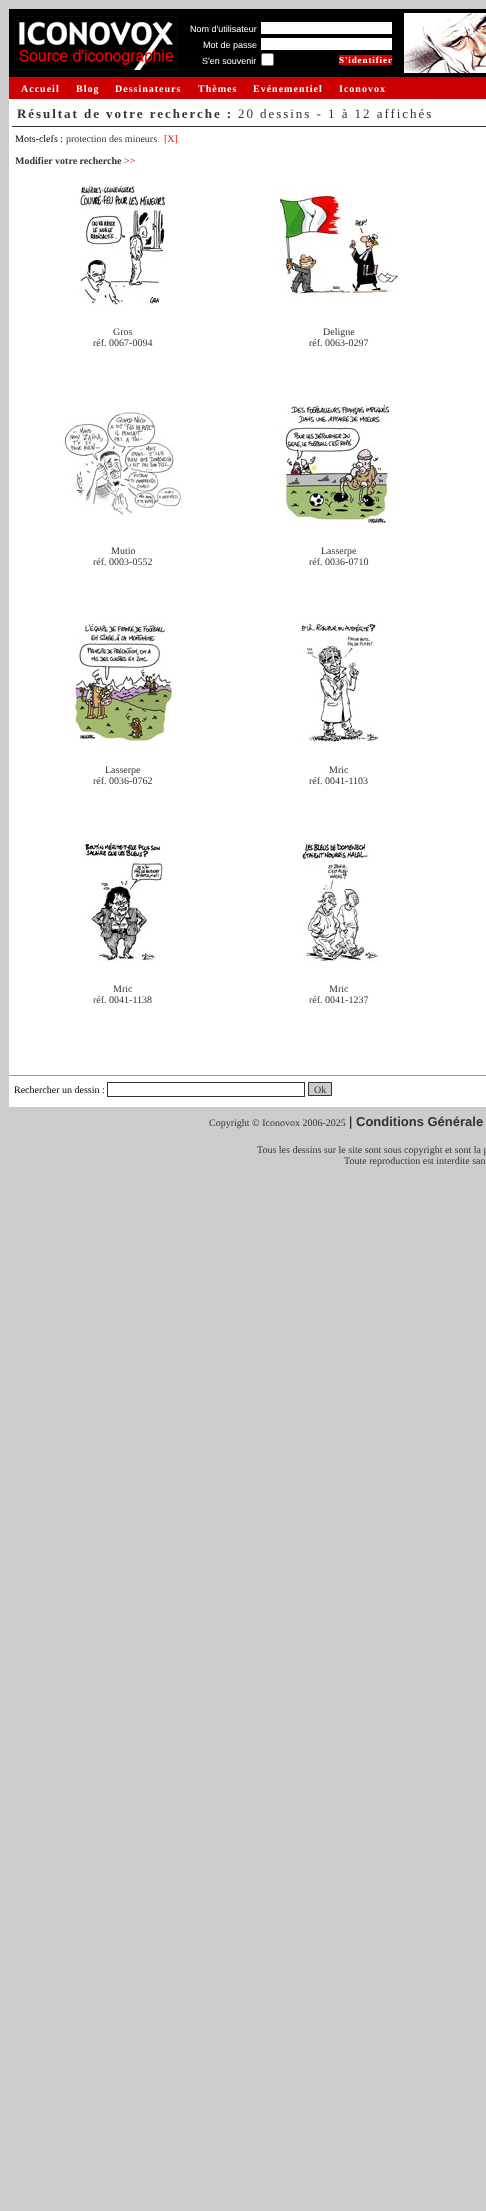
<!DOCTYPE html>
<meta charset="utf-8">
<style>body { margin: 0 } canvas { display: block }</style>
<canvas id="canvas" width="486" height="2211"></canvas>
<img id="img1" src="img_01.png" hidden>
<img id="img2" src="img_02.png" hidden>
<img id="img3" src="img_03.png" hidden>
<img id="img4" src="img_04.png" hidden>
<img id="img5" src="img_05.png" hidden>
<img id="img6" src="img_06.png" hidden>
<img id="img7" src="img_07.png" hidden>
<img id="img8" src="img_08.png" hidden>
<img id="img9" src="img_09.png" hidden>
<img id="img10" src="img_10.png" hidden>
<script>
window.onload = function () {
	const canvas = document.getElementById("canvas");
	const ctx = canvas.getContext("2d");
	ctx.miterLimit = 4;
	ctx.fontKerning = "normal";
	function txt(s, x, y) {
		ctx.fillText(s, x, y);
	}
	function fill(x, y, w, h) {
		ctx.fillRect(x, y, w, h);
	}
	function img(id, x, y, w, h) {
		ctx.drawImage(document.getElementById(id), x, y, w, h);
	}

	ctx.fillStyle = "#CCCCCC";
	fill(0, 0, 486, 2211);
	ctx.fillStyle = "#000000";
	fill(9, 9, 477, 68);
	img("img1", 13, 16, 165, 54);
	ctx.fillStyle = "#FFFFFF";
	fill(261, 22, 131, 12);
	fill(261, 38, 131, 12);
	ctx.beginPath();
	ctx.roundRect(261.5, 53.5, 12, 12, 1.5);
	ctx.fill();
	ctx.strokeStyle = "#767676";
	ctx.stroke();
	ctx.fillStyle = "#CC0000";
	fill(339, 55, 53, 10);
	img("img2", 404, 13, 82, 60);
	fill(9, 77, 477, 22);
	ctx.fillStyle = "#FFFFFF";
	fill(9, 99, 477, 1008);
	ctx.fillStyle = "#333333";
	fill(12, 126, 474, 1);
	img("img3", 79, 185, 88, 120);
	img("img4", 279, 185, 120, 112);
	img("img5", 63, 412, 120, 104);
	img("img6", 279, 404, 112, 120);
	img("img7", 71, 623, 104, 120);
	img("img8", 296, 623, 87, 120);
	img("img9", 81, 842, 86, 120);
	img("img10", 302, 842, 81, 120);
	ctx.fillStyle = "#999999";
	fill(9, 1075, 477, 1);
	ctx.strokeStyle = "#333333";
	ctx.strokeRect(107.5, 1082.5, 197, 14);
	ctx.fillStyle = "#CCCCCC";
	ctx.beginPath();
	ctx.rect(308.5, 1082.5, 23, 13);
	ctx.fill();
	ctx.stroke();
	ctx.font = "9px Liberation Sans";
	ctx.fillStyle = "#FFFFFF";
	txt("Nom d'utilisateur", 190, 32);
	txt("Mot de passe", 203, 48);
	txt("S'en souvenir", 202, 64);
	ctx.letterSpacing = "0.9px";
	ctx.font = "bold 9px Liberation Serif";
	txt("S'identifier", 339, 63);
	ctx.letterSpacing = "1px";
	ctx.font = "bold 10px Liberation Serif";
	txt("Accueil", 21, 92);
	txt("Blog", 76, 92);
	txt("Dessinateurs", 115, 92);
	txt("Thèmes", 198, 92);
	txt("Evénementiel", 253, 92);
	txt("Iconovox", 339, 92);
	ctx.letterSpacing = "1.95px";
	ctx.font = "bold 13px Liberation Serif";
	ctx.fillStyle = "#333333";
	txt("Résultat de votre recherche :", 17, 118);
	ctx.font = "13px Liberation Serif";
	txt("20 dessins - 1 à 12 affichés", 238, 118);
	ctx.letterSpacing = "0px";
	ctx.font = "10px Liberation Serif";
	ctx.fillStyle = "#000000";
	txt("Mots-clefs :", 15, 142);
	ctx.fillStyle = "#333333";
	txt("protection des mineurs", 66, 142);
	ctx.fillStyle = "#FF0000";
	txt("[X]", 164, 142);
	ctx.font = "bold 10px Liberation Serif";
	ctx.fillStyle = "#333333";
	txt("Modifier votre recherche", 15, 164);
	ctx.font = "10px Liberation Serif";
	ctx.fillStyle = "#CC0000";
	txt(">>", 124, 164);
	ctx.fillStyle = "#333333";
	txt("Gros", 113, 335);
	txt("réf. 0067-0094", 93, 346);
	txt("Deligne", 323, 335);
	txt("réf. 0063-0297", 309, 346);
	txt("Mutio", 111, 554);
	txt("réf. 0003-0552", 93, 565);
	txt("Lasserpe", 321, 554);
	txt("réf. 0036-0710", 309, 565);
	txt("Lasserpe", 105, 773);
	txt("réf. 0036-0762", 93, 784);
	txt("Mric", 329, 773);
	txt("réf. 0041-1103", 309, 784);
	txt("Mric", 113, 992);
	txt("réf. 0041-1138", 93, 1003);
	txt("Mric", 329, 992);
	txt("réf. 0041-1237", 309, 1003);
	ctx.fillStyle = "#000000";
	txt("Rechercher un dessin :", 14, 1093);
	ctx.fillStyle = "#333333";
	txt("Ok", 314, 1093);
	txt("Copyright © Iconovox 2006-2025", 209, 1126);
	ctx.font = "13px Liberation Sans";
	ctx.fillStyle = "#000000";
	txt("|", 349, 1126);
	ctx.font = "bold 13px Liberation Sans";
	ctx.fillStyle = "#333333";
	txt("Conditions Générale", 356, 1126);
	ctx.font = "10px Liberation Serif";
	txt("Tous les dessins sur le site sont sous copyright et sont la p", 257, 1153);
	txt("Toute reproduction est interdite san", 344, 1164);
};
</script>
